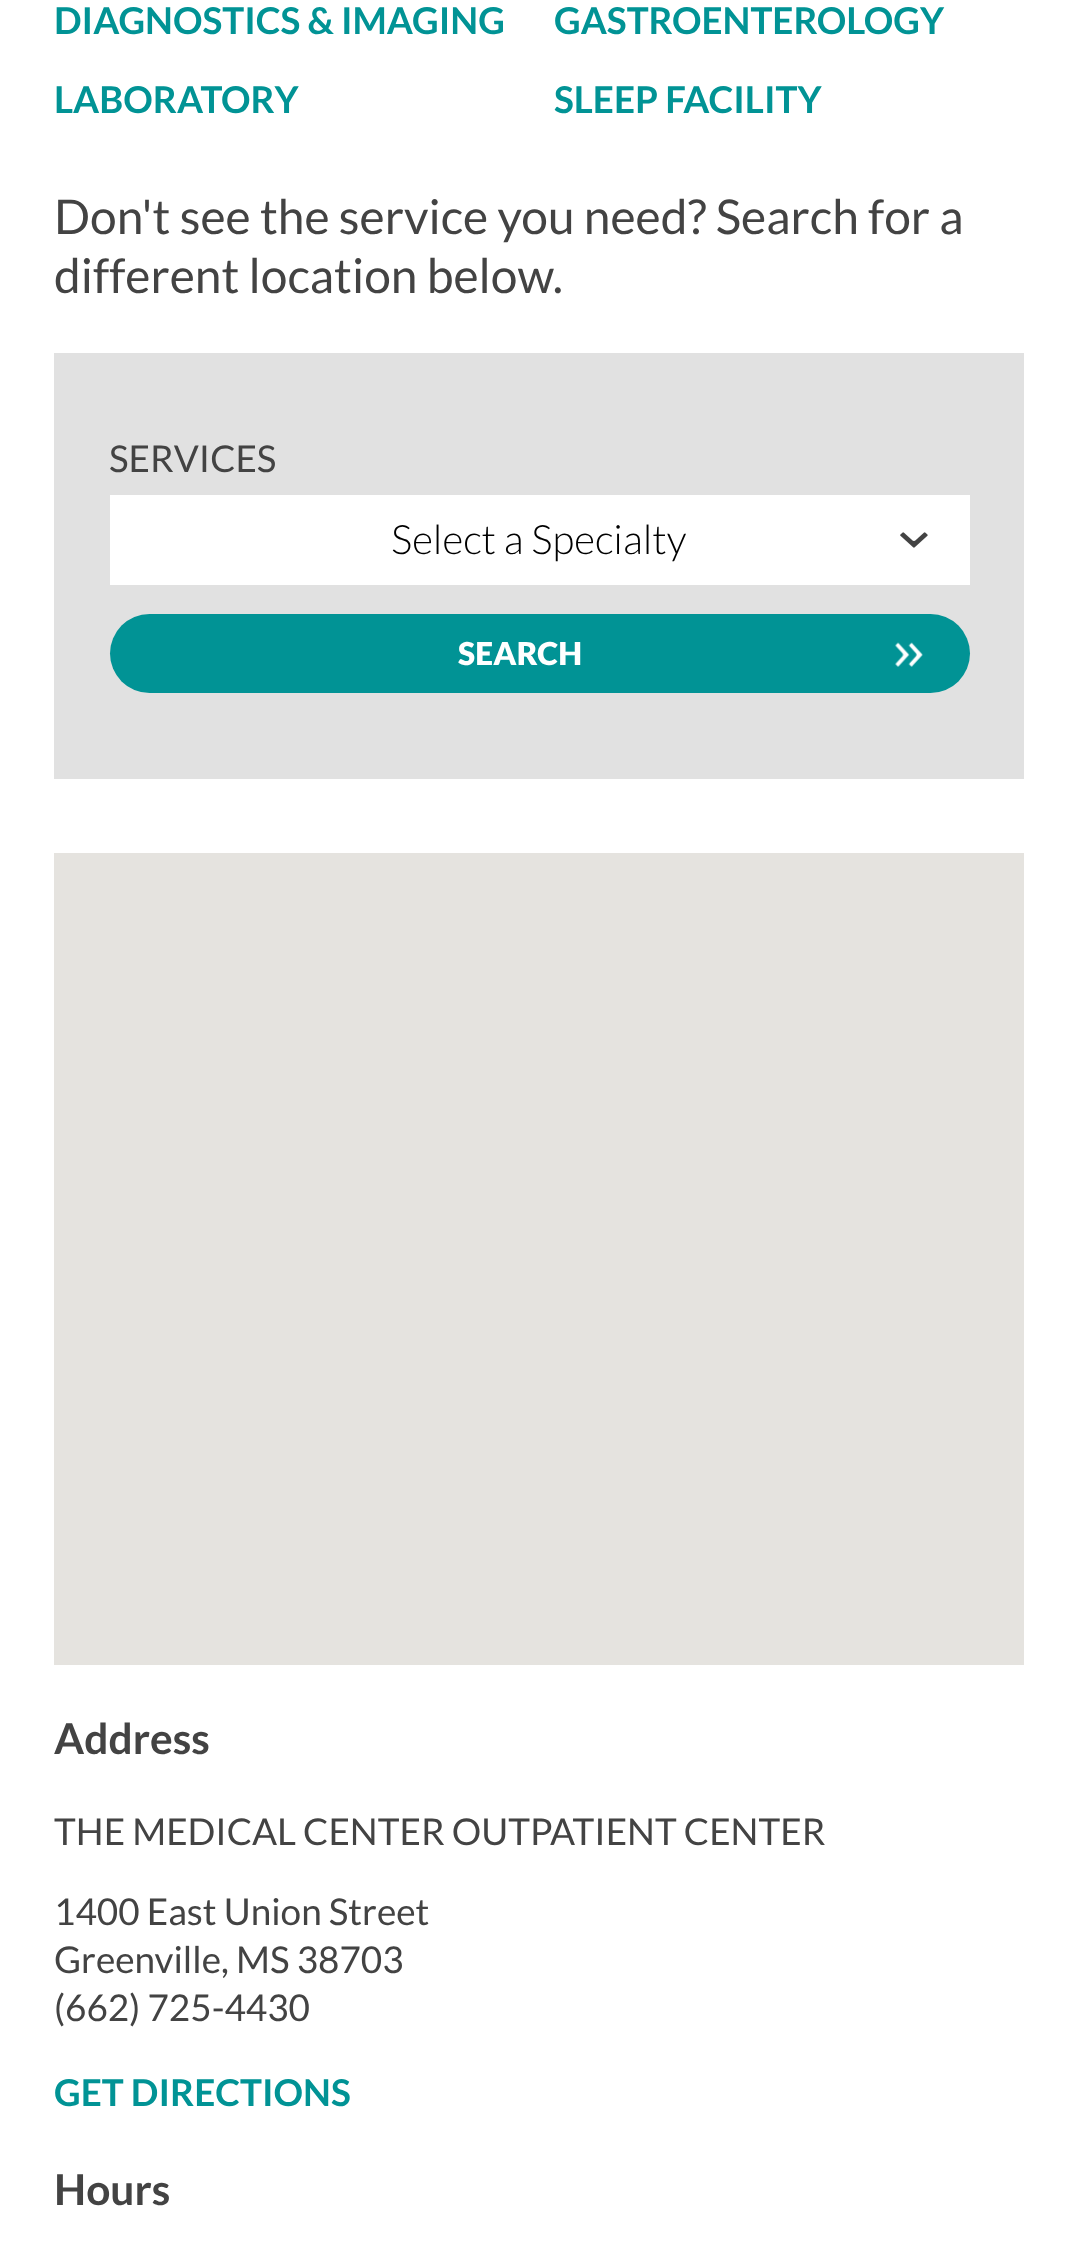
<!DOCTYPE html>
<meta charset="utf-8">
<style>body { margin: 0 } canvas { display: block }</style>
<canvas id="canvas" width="1076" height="2266"></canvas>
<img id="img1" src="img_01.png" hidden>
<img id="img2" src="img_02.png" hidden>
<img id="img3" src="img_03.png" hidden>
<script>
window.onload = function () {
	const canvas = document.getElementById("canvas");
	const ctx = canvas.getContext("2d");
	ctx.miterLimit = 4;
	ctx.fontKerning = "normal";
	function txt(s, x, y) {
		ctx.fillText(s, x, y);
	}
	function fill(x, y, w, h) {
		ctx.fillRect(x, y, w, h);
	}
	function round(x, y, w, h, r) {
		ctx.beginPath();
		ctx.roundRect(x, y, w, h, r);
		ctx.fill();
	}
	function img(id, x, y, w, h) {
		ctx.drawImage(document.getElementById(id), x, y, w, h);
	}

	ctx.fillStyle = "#FFFFFF";
	fill(0, 0, 1076, 2266);
	ctx.fillStyle = "#E1E1E1";
	fill(54, 353, 970, 426);
	ctx.fillStyle = "#FFFFFF";
	fill(110, 495, 860, 90);
	img("img1", 900, 532, 28, 16);
	ctx.fillStyle = "#019395";
	round(110, 614, 860, 79, 39.5);
	img("img2", 895, 642, 15, 25);
	img("img3", 908, 642, 15, 25);
	ctx.fillStyle = "#E5E3DF";
	fill(54, 853, 970, 812);
	ctx.font = "bold 36.9px Lato";
	ctx.fillStyle = "#019395";
	txt("DIAGNOSTICS & IMAGING", 54, 34);
	txt("GASTROENTEROLOGY", 554, 34);
	txt("LABORATORY", 54, 113);
	txt("SLEEP FACILITY", 554, 113);
	ctx.font = "47.9px Lato";
	ctx.fillStyle = "#434343";
	txt("Don't see the service you need? Search for a", 54, 234);
	txt("different location below.", 54, 293);
	ctx.font = "36.9px Lato";
	txt("SERVICES", 109, 472);
	ctx.font = "300 40.5px Lato";
	ctx.fillStyle = "#000000";
	txt("Select a Specialty", 391, 554);
	ctx.letterSpacing = "0.25px";
	ctx.font = "900 31.5px Lato";
	ctx.fillStyle = "#FFFFFF";
	txt("SEARCH", 458, 665);
	ctx.letterSpacing = "0px";
	ctx.font = "bold 42.5px Lato";
	ctx.fillStyle = "#434343";
	txt("Address", 54, 1754);
	ctx.font = "36.9px Lato";
	txt("THE MEDICAL CENTER OUTPATIENT CENTER", 54, 1845);
	txt("1400 East Union Street", 54, 1925);
	txt("Greenville, MS 38703", 54, 1973);
	txt("(662) 725-4430", 54, 2021);
	ctx.font = "bold 36.9px Lato";
	ctx.fillStyle = "#019395";
	txt("GET DIRECTIONS", 54, 2106);
	ctx.font = "bold 42.5px Lato";
	ctx.fillStyle = "#434343";
	txt("Hours", 54, 2205);
};
</script>
